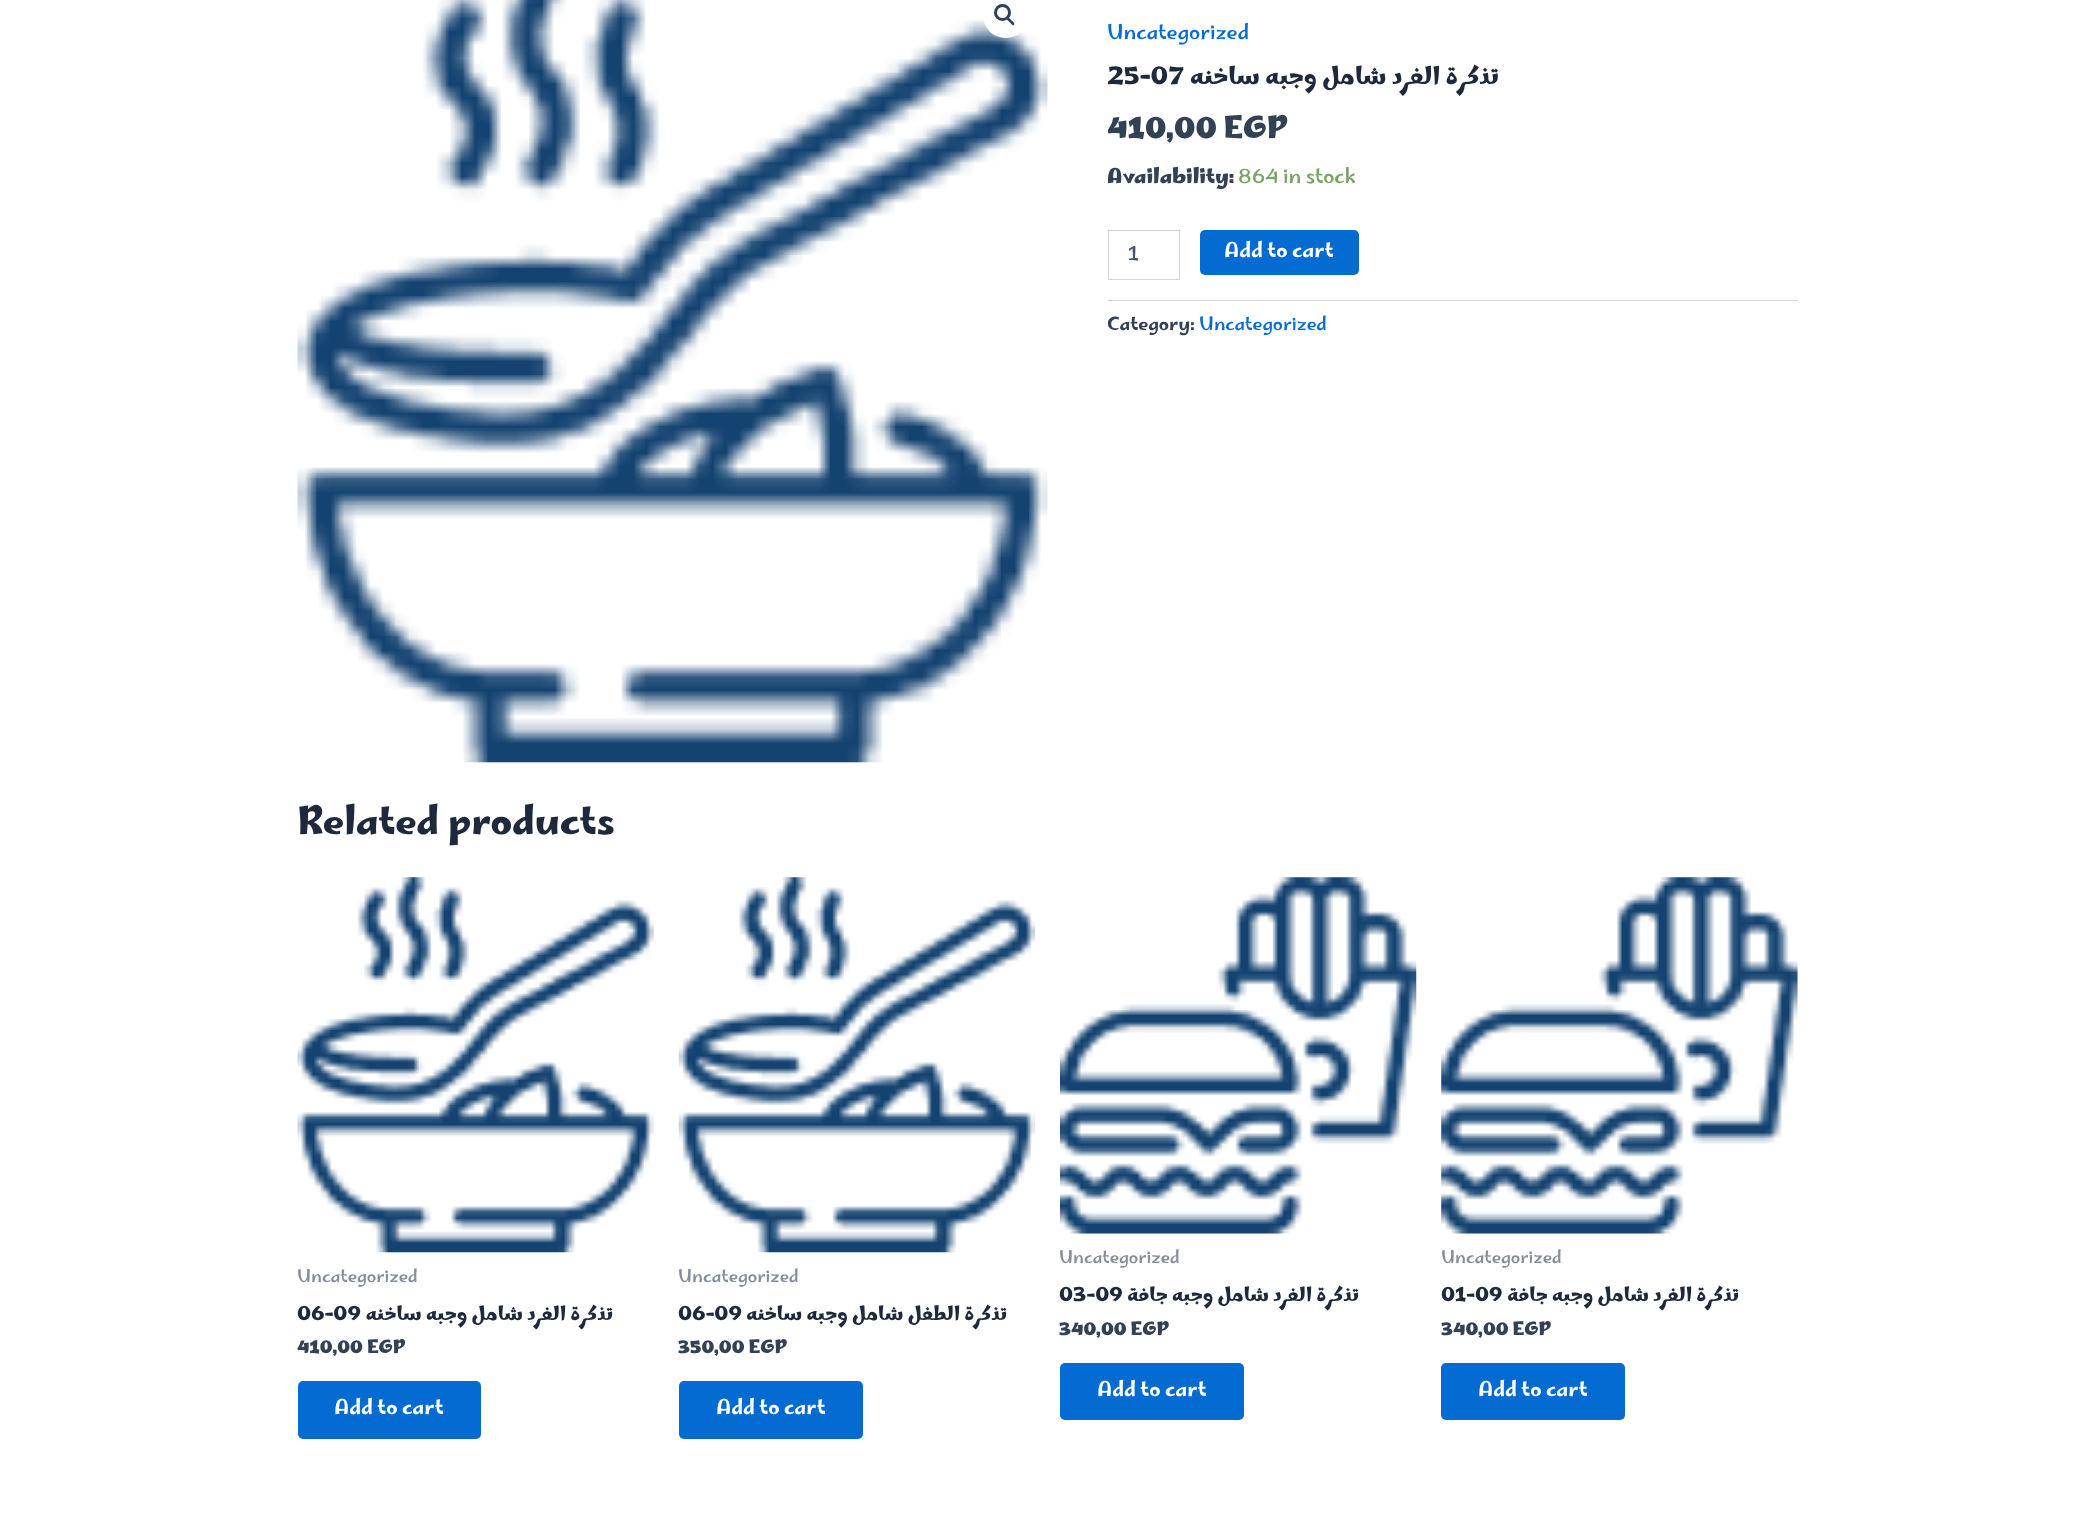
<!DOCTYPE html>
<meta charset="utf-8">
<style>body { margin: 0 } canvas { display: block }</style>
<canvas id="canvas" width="2093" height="1513"></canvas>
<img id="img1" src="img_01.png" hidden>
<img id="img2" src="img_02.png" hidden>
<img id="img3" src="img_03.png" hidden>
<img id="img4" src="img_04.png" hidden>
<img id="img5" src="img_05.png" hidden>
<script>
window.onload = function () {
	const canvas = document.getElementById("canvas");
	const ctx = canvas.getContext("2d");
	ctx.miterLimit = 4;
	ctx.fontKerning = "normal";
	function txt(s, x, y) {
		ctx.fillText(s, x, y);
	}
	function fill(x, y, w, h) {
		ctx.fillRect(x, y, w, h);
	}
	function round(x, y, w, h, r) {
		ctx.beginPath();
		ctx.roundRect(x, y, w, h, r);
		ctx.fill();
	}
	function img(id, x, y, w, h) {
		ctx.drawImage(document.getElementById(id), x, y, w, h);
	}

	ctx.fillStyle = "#FFFFFF";
	fill(0, 0, 2093, 1513);
	img("img1", 297, 0, 751, 763);
	ctx.beginPath();
	ctx.arc(1005.5, 15.5, 22.5, 0, Math.PI * 2);
	ctx.fill();
	ctx.beginPath();
	ctx.arc(1002.5, 12.5, 7, 0, Math.PI * 2);
	ctx.strokeStyle = "#334155";
	ctx.lineWidth = 3;
	ctx.stroke();
	ctx.fillStyle = "#334155";
	ctx.beginPath();
	ctx.moveTo(1007, 17.5);
	ctx.bezierCurveTo(1008.5, 16.5, 1010.5, 19.5, 1011.5, 20.5);
	ctx.bezierCurveTo(1012.5, 21, 1015.5, 23.5, 1014, 25);
	ctx.bezierCurveTo(1012.5, 26, 1010.5, 23, 1009.5, 22);
	ctx.bezierCurveTo(1009, 21.5, 1005.5, 19, 1007, 17.5);
	ctx.closePath();
	ctx.fill();
	ctx.strokeStyle = "#D1D5DB";
	ctx.lineWidth = 1;
	ctx.strokeRect(1108.5, 230.5, 71, 49);
	ctx.fillStyle = "#046BD2";
	round(1200, 230, 159, 45, 5);
	ctx.fillStyle = "#D1D5DB";
	fill(1108, 300, 690, 1);
	img("img2", 297, 877, 357, 376);
	ctx.fillStyle = "#046BD2";
	round(298, 1381, 183, 58, 5);
	img("img3", 678, 877, 357, 376);
	round(679, 1381, 184, 58, 5);
	img("img4", 1060, 877, 357, 357);
	round(1060, 1363, 184, 57, 5);
	img("img5", 1441, 877, 357, 357);
	round(1441, 1363, 184, 57, 5);
	ctx.font = "20px Marhey";
	txt("Uncategorized", 1107, 39);
	ctx.font = "600 25px Marhey";
	ctx.fillStyle = "#1E293B";
	txt("25-07", 1107, 84);
	ctx.direction = "rtl";
	txt("تذكرة الفرد شامل وجبه ساخنه", 1499, 84);
	ctx.direction = "ltr";
	ctx.font = "bold 30px Marhey";
	ctx.fillStyle = "#334155";
	txt("410,00 EGP", 1107, 138);
	ctx.font = "bold 20px Marhey";
	txt("Availability:", 1107, 183);
	ctx.font = "20px Marhey";
	ctx.fillStyle = "#77A464";
	txt("864 in stock", 1238, 183);
	ctx.fillStyle = "#475569";
	txt("1", 1128, 260);
	ctx.font = "500 20px Marhey";
	ctx.fillStyle = "#FFFFFF";
	txt("Add to cart", 1224, 257);
	ctx.font = "500 18px Marhey";
	ctx.fillStyle = "#334155";
	txt("Category:", 1107, 330);
	ctx.font = "18px Marhey";
	ctx.fillStyle = "#046BD2";
	txt("Uncategorized", 1199, 330);
	ctx.font = "600 37.5px Marhey";
	ctx.fillStyle = "#1E293B";
	txt("Related products", 297, 834);
	ctx.font = "17px Marhey";
	ctx.fillStyle = "#858D99";
	txt("Uncategorized", 297, 1282);
	ctx.font = "600 20px Marhey";
	ctx.fillStyle = "#1E293B";
	txt("06-09", 297, 1320);
	ctx.direction = "rtl";
	txt("تذكرة الفرد شامل وجبه ساخنه", 613, 1320);
	ctx.direction = "ltr";
	ctx.font = "bold 18px Marhey";
	ctx.fillStyle = "#334155";
	txt("410,00 EGP", 297, 1353);
	ctx.font = "500 20px Marhey";
	ctx.fillStyle = "#FFFFFF";
	txt("Add to cart", 334, 1414);
	ctx.font = "17px Marhey";
	ctx.fillStyle = "#858D99";
	txt("Uncategorized", 678, 1282);
	ctx.font = "600 20px Marhey";
	ctx.fillStyle = "#1E293B";
	txt("06-09", 678, 1320);
	ctx.direction = "rtl";
	txt("تذكرة الطفل شامل وجبه ساخنه", 1007, 1320);
	ctx.direction = "ltr";
	ctx.font = "bold 18px Marhey";
	ctx.fillStyle = "#334155";
	txt("350,00 EGP", 678, 1353);
	ctx.font = "500 20px Marhey";
	ctx.fillStyle = "#FFFFFF";
	txt("Add to cart", 716, 1414);
	ctx.font = "17px Marhey";
	ctx.fillStyle = "#858D99";
	txt("Uncategorized", 1059, 1263);
	ctx.font = "600 20px Marhey";
	ctx.fillStyle = "#1E293B";
	txt("03-09", 1059, 1301);
	ctx.direction = "rtl";
	txt("تذكرة الفرد شامل وجبه جافة", 1359, 1301);
	ctx.direction = "ltr";
	ctx.font = "bold 18px Marhey";
	ctx.fillStyle = "#334155";
	txt("340,00 EGP", 1059, 1335);
	ctx.font = "500 20px Marhey";
	ctx.fillStyle = "#FFFFFF";
	txt("Add to cart", 1097, 1396);
	ctx.font = "17px Marhey";
	ctx.fillStyle = "#858D99";
	txt("Uncategorized", 1441, 1263);
	ctx.font = "600 20px Marhey";
	ctx.fillStyle = "#1E293B";
	txt("01-09", 1441, 1301);
	ctx.direction = "rtl";
	txt("تذكرة الفرد شامل وجبه جافة", 1739, 1301);
	ctx.direction = "ltr";
	ctx.font = "bold 18px Marhey";
	ctx.fillStyle = "#334155";
	txt("340,00 EGP", 1441, 1335);
	ctx.font = "500 20px Marhey";
	ctx.fillStyle = "#FFFFFF";
	txt("Add to cart", 1478, 1396);
};
</script>
